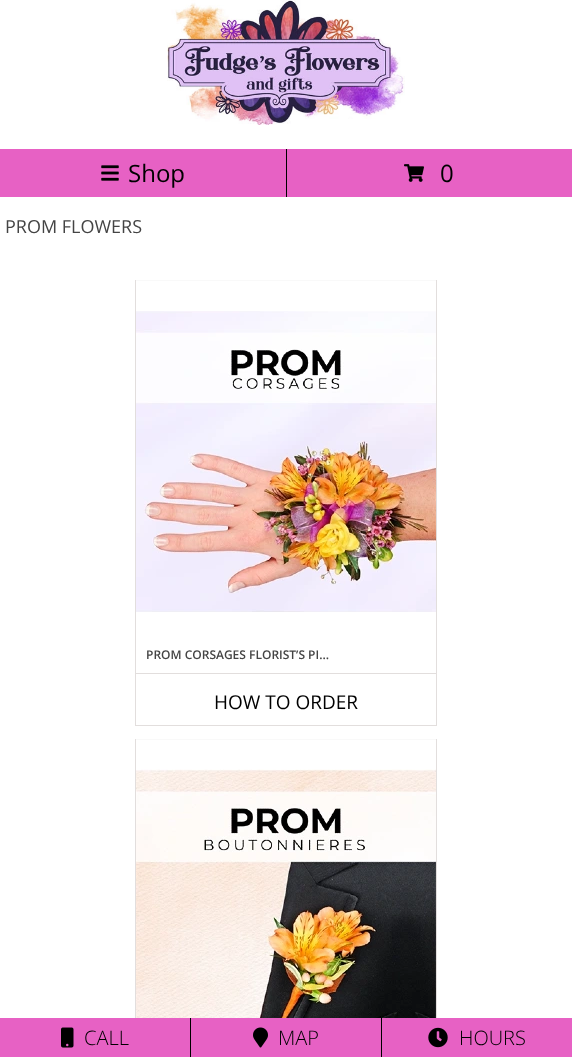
<!DOCTYPE html>
<meta charset="utf-8">
<style>body { margin: 0 } canvas { display: block }</style>
<canvas id="canvas" width="572" height="1057"></canvas>
<img id="img1" src="img_01.png" hidden>
<img id="img2" src="img_02.png" hidden>
<img id="img3" src="img_03.png" hidden>
<img id="img4" src="img_04.png" hidden>
<img id="img5" src="img_05.png" hidden>
<img id="img6" src="img_06.png" hidden>
<img id="img7" src="img_07.png" hidden>
<img id="img8" src="img_08.png" hidden>
<script>
window.onload = function () {
	const canvas = document.getElementById("canvas");
	const ctx = canvas.getContext("2d");
	ctx.miterLimit = 4;
	ctx.fontKerning = "normal";
	function txt(s, x, y) {
		ctx.fillText(s, x, y);
	}
	function fill(x, y, w, h) {
		ctx.fillRect(x, y, w, h);
	}
	function img(id, x, y, w, h) {
		ctx.drawImage(document.getElementById(id), x, y, w, h);
	}

	ctx.fillStyle = "#FFFFFF";
	fill(0, 0, 572, 1057);
	img("img1", 167, 0, 238, 125);
	ctx.fillStyle = "#000000";
	fill(286, 149, 1, 48);
	ctx.fillStyle = "#E761C4";
	fill(0, 149, 286, 48);
	img("img2", 101, 165, 18, 16);
	fill(287, 149, 285, 48);
	img("img3", 404, 164, 20, 18);
	ctx.fillStyle = "#F9F9F9";
	fill(135, 280, 302, 1);
	ctx.fillStyle = "#E2DEDD";
	fill(436, 280, 1, 446);
	fill(135, 725, 302, 1);
	fill(135, 280, 1, 446);
	img("img4", 136, 311, 300, 301);
	fill(136, 673, 300, 1);
	ctx.fillStyle = "#F9F9F9";
	fill(135, 739, 302, 1);
	ctx.fillStyle = "#E2DEDD";
	fill(436, 739, 1, 279);
	fill(135, 739, 1, 279);
	img("img5", 136, 769, 300, 249);
	ctx.fillStyle = "#E761C4";
	fill(0, 1018, 190, 39);
	img("img6", 61, 1027, 13, 21);
	fill(191, 1018, 190, 39);
	ctx.fillStyle = "#000000";
	fill(190, 1018, 1, 39);
	img("img7", 253, 1027, 15, 21);
	ctx.fillStyle = "#E761C4";
	fill(382, 1018, 190, 39);
	ctx.fillStyle = "#000000";
	fill(381, 1018, 1, 39);
	img("img8", 428, 1027, 20, 21);
	ctx.font = "24px Open Sans";
	txt("Shop", 128, 182);
	txt("0", 440, 182);
	ctx.font = "18px Open Sans";
	ctx.fillStyle = "#444444";
	txt("PROM FLOWERS", 5, 233);
	ctx.font = "600 12px Open Sans";
	txt("PROM CORSAGES FLORIST’S PI…", 146, 659);
	ctx.font = "19px Open Sans";
	ctx.fillStyle = "#000000";
	txt("HOW TO ORDER", 214, 709);
	ctx.font = "300 20px Open Sans";
	txt("CALL", 84, 1045);
	txt("MAP", 278, 1045);
	txt("HOURS", 459, 1045);
};
</script>
